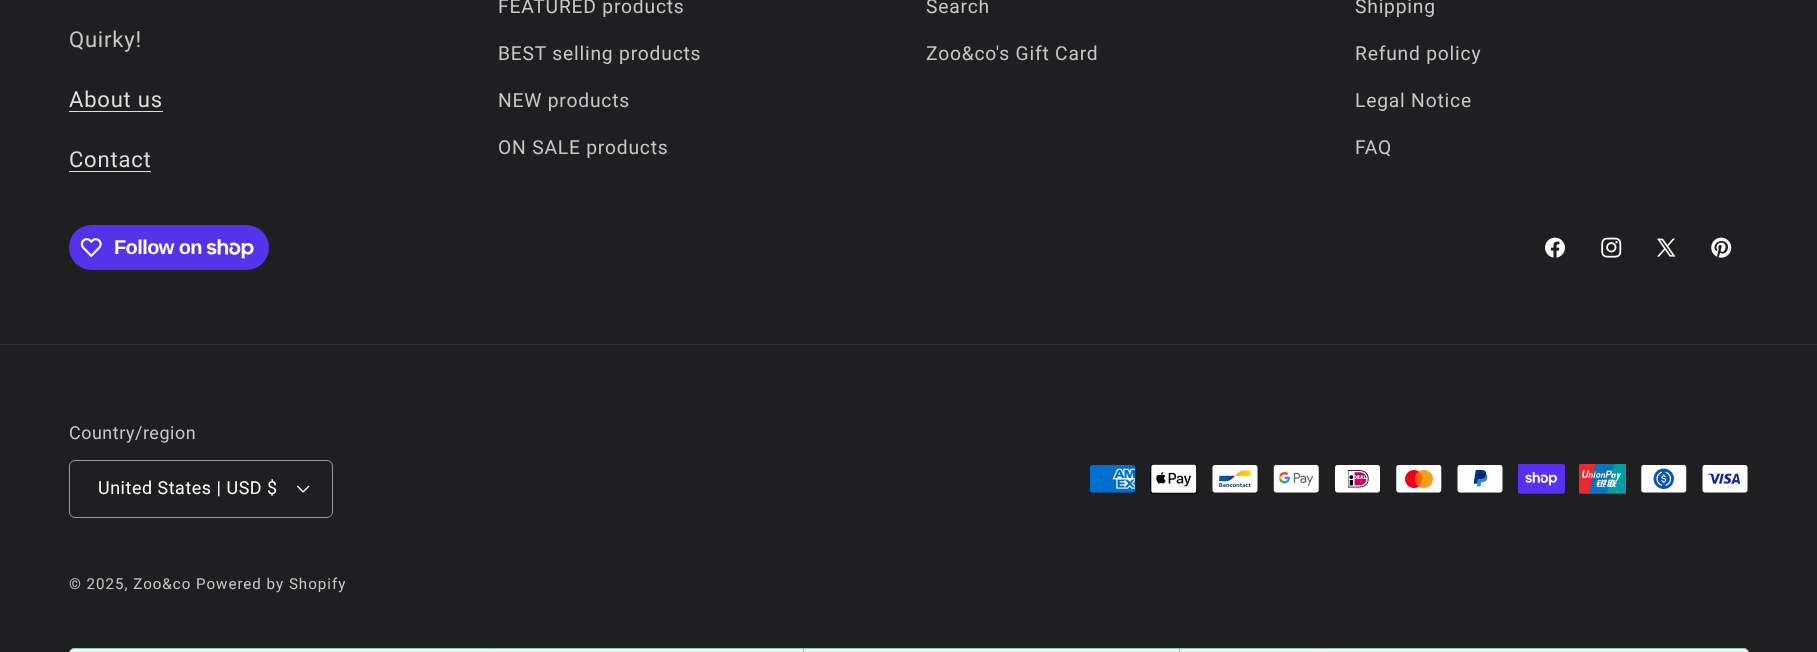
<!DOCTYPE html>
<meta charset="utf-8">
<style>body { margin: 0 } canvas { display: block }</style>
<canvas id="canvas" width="1817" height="652"></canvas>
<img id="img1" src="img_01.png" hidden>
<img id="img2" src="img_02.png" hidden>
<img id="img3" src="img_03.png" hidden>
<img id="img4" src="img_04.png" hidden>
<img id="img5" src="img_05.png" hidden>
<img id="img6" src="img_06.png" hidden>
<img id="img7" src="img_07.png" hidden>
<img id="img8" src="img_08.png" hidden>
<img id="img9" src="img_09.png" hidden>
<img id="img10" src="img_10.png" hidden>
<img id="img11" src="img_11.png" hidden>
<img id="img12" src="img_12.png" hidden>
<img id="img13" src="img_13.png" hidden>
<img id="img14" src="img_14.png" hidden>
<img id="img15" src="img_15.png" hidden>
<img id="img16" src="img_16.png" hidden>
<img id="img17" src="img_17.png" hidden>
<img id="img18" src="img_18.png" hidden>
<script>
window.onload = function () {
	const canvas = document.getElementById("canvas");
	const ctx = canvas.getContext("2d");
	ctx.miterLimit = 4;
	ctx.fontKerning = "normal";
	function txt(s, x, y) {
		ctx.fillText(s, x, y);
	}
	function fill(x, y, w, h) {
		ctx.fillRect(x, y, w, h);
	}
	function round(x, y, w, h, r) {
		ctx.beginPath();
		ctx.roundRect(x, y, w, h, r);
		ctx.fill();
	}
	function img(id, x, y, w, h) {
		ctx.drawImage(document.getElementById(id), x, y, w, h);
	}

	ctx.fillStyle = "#1F1F21";
	fill(0, 0, 1817, 652);
	ctx.fillStyle = "#DDDDDE";
	fill(69, 111, 94, 1);
	fill(69, 171, 82, 1);
	ctx.fillStyle = "#5433EB";
	round(69, 225, 200, 45, 22.5);
	img("img1", 80, 238, 22, 19);
	img("img2", 206, 239, 48, 20);
	img("img3", 1545, 237, 20, 21);
	img("img4", 1601, 237, 21, 21);
	img("img5", 1657, 238, 19, 19);
	img("img6", 1711, 237, 21, 21);
	ctx.fillStyle = "#313133";
	fill(0, 344, 1817, 1);
	img("img7", 297, 485, 13, 8);
	ctx.beginPath();
	ctx.roundRect(69.5, 460.5, 263, 57, 5.5);
	ctx.strokeStyle = "#9A9A9B";
	ctx.stroke();
	img("img8", 1090, 465, 45, 28);
	img("img9", 1150, 464, 48, 30);
	img("img10", 1212, 465, 46, 28);
	img("img11", 1273, 465, 46, 28);
	img("img12", 1335, 465, 45, 28);
	img("img13", 1396, 465, 46, 28);
	img("img14", 1457, 465, 46, 28);
	img("img15", 1518, 464, 47, 30);
	img("img16", 1579, 464, 47, 30);
	img("img17", 1641, 465, 46, 28);
	img("img18", 1702, 465, 46, 28);
	ctx.fillStyle = "#F1F8F5";
	ctx.beginPath();
	ctx.roundRect(69.5, 648.5, 1679, 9, 4.5);
	ctx.fill();
	ctx.strokeStyle = "#95C9B4";
	ctx.stroke();
	ctx.fillStyle = "#95C9B4";
	fill(803, 649, 1, 3);
	fill(1179, 649, 1, 3);
	ctx.letterSpacing = "0.8px";
	ctx.font = "22px Roboto";
	ctx.fillStyle = "#C7C7C8";
	txt("Quirky!", 69, 47);
	ctx.fillStyle = "#DDDDDE";
	txt("About us", 69, 107);
	txt("Contact", 69, 167);
	ctx.font = "19.25px Roboto";
	ctx.fillStyle = "#C7C7C8";
	txt("FEATURED products", 498, 13);
	txt("BEST selling products", 498, 60);
	txt("NEW products", 498, 107);
	txt("ON SALE products", 498, 154);
	txt("Search", 926, 13);
	txt("Zoo&co's Gift Card", 926, 60);
	txt("Shipping", 1355, 13);
	txt("Refund policy", 1355, 60);
	txt("Legal Notice", 1355, 107);
	txt("FAQ", 1355, 154);
	ctx.letterSpacing = "-0.6px";
	ctx.font = "bold 20px Liberation Sans";
	ctx.fillStyle = "#FFFFFF";
	txt("Follow on", 114, 254);
	ctx.letterSpacing = "0.55px";
	ctx.font = "17.9px Roboto";
	ctx.fillStyle = "#C7C7C8";
	txt("Country/region", 69, 439);
	ctx.fillStyle = "#FFFFFF";
	txt("United States | USD $", 98, 494);
	ctx.letterSpacing = "1px";
	ctx.font = "15.1px Roboto";
	ctx.fillStyle = "#C7C7C8";
	txt("© 2025, Zoo&co", 69, 589);
	txt("Powered by Shopify", 196, 589);
};
</script>
